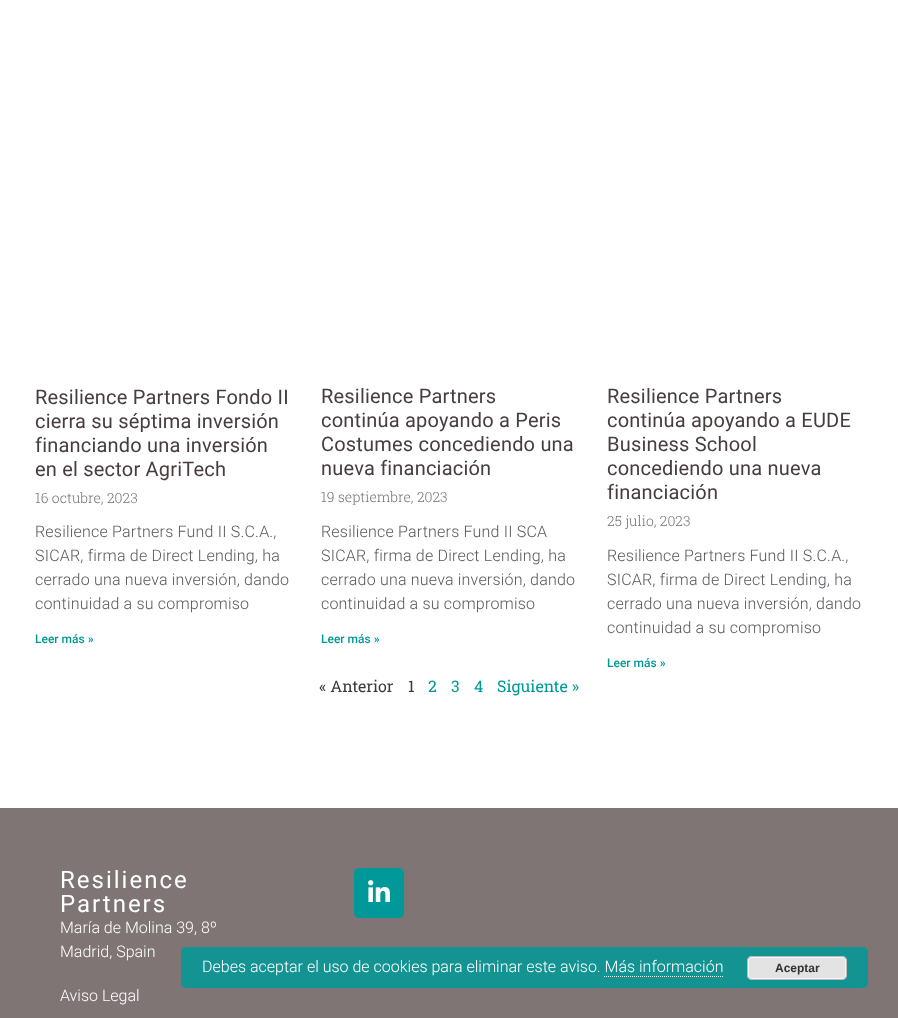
<!DOCTYPE html>
<meta charset="utf-8">
<style>body { margin: 0 } canvas { display: block }</style>
<canvas id="canvas" width="898" height="1018"></canvas>
<img id="img1" src="img_01.png" hidden>
<script>
window.onload = function () {
	const canvas = document.getElementById("canvas");
	const ctx = canvas.getContext("2d");
	ctx.miterLimit = 4;
	ctx.fontKerning = "normal";
	function txt(s, x, y) {
		ctx.fillText(s, x, y);
	}
	function fill(x, y, w, h) {
		ctx.fillRect(x, y, w, h);
	}
	function round(x, y, w, h, r) {
		ctx.beginPath();
		ctx.roundRect(x, y, w, h, r);
		ctx.fill();
	}
	function img(id, x, y, w, h) {
		ctx.drawImage(document.getElementById(id), x, y, w, h);
	}

	ctx.fillStyle = "#FFFFFF";
	fill(0, 0, 898, 1018);
	ctx.fillStyle = "#7F7575";
	fill(0, 808, 898, 210);
	ctx.fillStyle = "#009899";
	round(354, 868, 50, 50, 5);
	img("img1", 368, 880, 22, 22);
	ctx.fillStyle = "#139493";
	round(181, 947, 687, 41, 5);
	ctx.fillStyle = "#E3E3E3";
	round(747, 956, 100, 24, 5);
	ctx.beginPath();
	ctx.roundRect(748.5, 957.5, 97, 21, 3.5);
	ctx.strokeStyle = "#F6F6F6";
	ctx.stroke();
	ctx.beginPath();
	ctx.roundRect(747.5, 956.5, 99, 23, 4.5);
	ctx.strokeStyle = "#BBBBBB";
	ctx.stroke();
	ctx.beginPath();
	ctx.moveTo(604, 976.5);
	ctx.lineTo(723, 976.5);
	ctx.strokeStyle = "#FFFFFF";
	ctx.setLineDash([1, 1]);
	ctx.stroke();
	ctx.letterSpacing = "0.2px";
	ctx.font = "20px Roboto";
	ctx.fillStyle = "#473D3D";
	txt("Resilience Partners Fondo II", 35, 404);
	txt("cierra su séptima inversión", 35, 428);
	txt("financiando una inversión", 35, 452);
	txt("en el sector AgriTech", 35, 476);
	ctx.letterSpacing = "0px";
	ctx.font = "300 14px Roboto Slab";
	ctx.fillStyle = "#727272";
	txt("16 octubre, 2023", 35, 503);
	ctx.letterSpacing = "0.2px";
	ctx.font = "300 16px Roboto";
	ctx.fillStyle = "#54595F";
	txt("Resilience Partners Fund II S.C.A.,", 35, 537);
	txt("SICAR, firma de Direct Lending, ha", 35, 561);
	txt("cerrado una nueva inversión, dando", 35, 585);
	txt("continuidad a su compromiso", 35, 609);
	ctx.letterSpacing = "0px";
	ctx.font = "500 12px Roboto";
	ctx.fillStyle = "#009999";
	txt("Leer más »", 35, 643);
	ctx.letterSpacing = "0.2px";
	ctx.font = "20px Roboto";
	ctx.fillStyle = "#473D3D";
	txt("Resilience Partners", 321, 403);
	txt("continúa apoyando a Peris", 321, 427);
	txt("Costumes concediendo una", 321, 451);
	txt("nueva financiación", 321, 475);
	ctx.letterSpacing = "0px";
	ctx.font = "300 14px Roboto Slab";
	ctx.fillStyle = "#727272";
	txt("19 septiembre, 2023", 321, 502);
	ctx.letterSpacing = "0.2px";
	ctx.font = "300 16px Roboto";
	ctx.fillStyle = "#54595F";
	txt("Resilience Partners Fund II SCA", 321, 537);
	txt("SICAR, firma de Direct Lending, ha", 321, 561);
	txt("cerrado una nueva inversión, dando", 321, 585);
	txt("continuidad a su compromiso", 321, 609);
	ctx.letterSpacing = "0px";
	ctx.font = "500 12px Roboto";
	ctx.fillStyle = "#009999";
	txt("Leer más »", 321, 643);
	ctx.letterSpacing = "0.2px";
	ctx.font = "20px Roboto";
	ctx.fillStyle = "#473D3D";
	txt("Resilience Partners", 607, 403);
	txt("continúa apoyando a EUDE", 607, 427);
	txt("Business School", 607, 451);
	txt("concediendo una nueva", 607, 475);
	txt("financiación", 607, 499);
	ctx.letterSpacing = "0px";
	ctx.font = "300 14px Roboto Slab";
	ctx.fillStyle = "#727272";
	txt("25 julio, 2023", 607, 526);
	ctx.letterSpacing = "0.2px";
	ctx.font = "300 16px Roboto";
	ctx.fillStyle = "#54595F";
	txt("Resilience Partners Fund II S.C.A.,", 607, 561);
	txt("SICAR, firma de Direct Lending, ha", 607, 585);
	txt("cerrado una nueva inversión, dando", 607, 609);
	txt("continuidad a su compromiso", 607, 633);
	ctx.letterSpacing = "0px";
	ctx.font = "500 12px Roboto";
	ctx.fillStyle = "#009999";
	txt("Leer más »", 607, 667);
	ctx.font = "16px Roboto Slab";
	ctx.fillStyle = "#3A3A3A";
	txt("« Anterior", 319, 692);
	txt("1", 408, 692);
	ctx.fillStyle = "#009999";
	txt("2", 428, 692);
	txt("3", 451, 692);
	txt("4", 474, 692);
	txt("Siguiente »", 497, 692);
	ctx.letterSpacing = "2px";
	ctx.font = "24px Roboto";
	ctx.fillStyle = "#FFFFFF";
	txt("Resilience", 60, 888);
	txt("Partners", 60, 912);
	ctx.letterSpacing = "0px";
	ctx.font = "300 16px Roboto";
	txt("María de Molina 39, 8º", 60, 933);
	txt("Madrid, Spain", 60, 957);
	txt("Aviso Legal", 60, 1001);
	txt("Debes aceptar el uso de cookies para eliminar este aviso. Más información", 202, 972);
	ctx.font = "bold 12px Liberation Sans";
	ctx.fillStyle = "#333333";
	txt("Aceptar", 775, 972);
};
</script>
